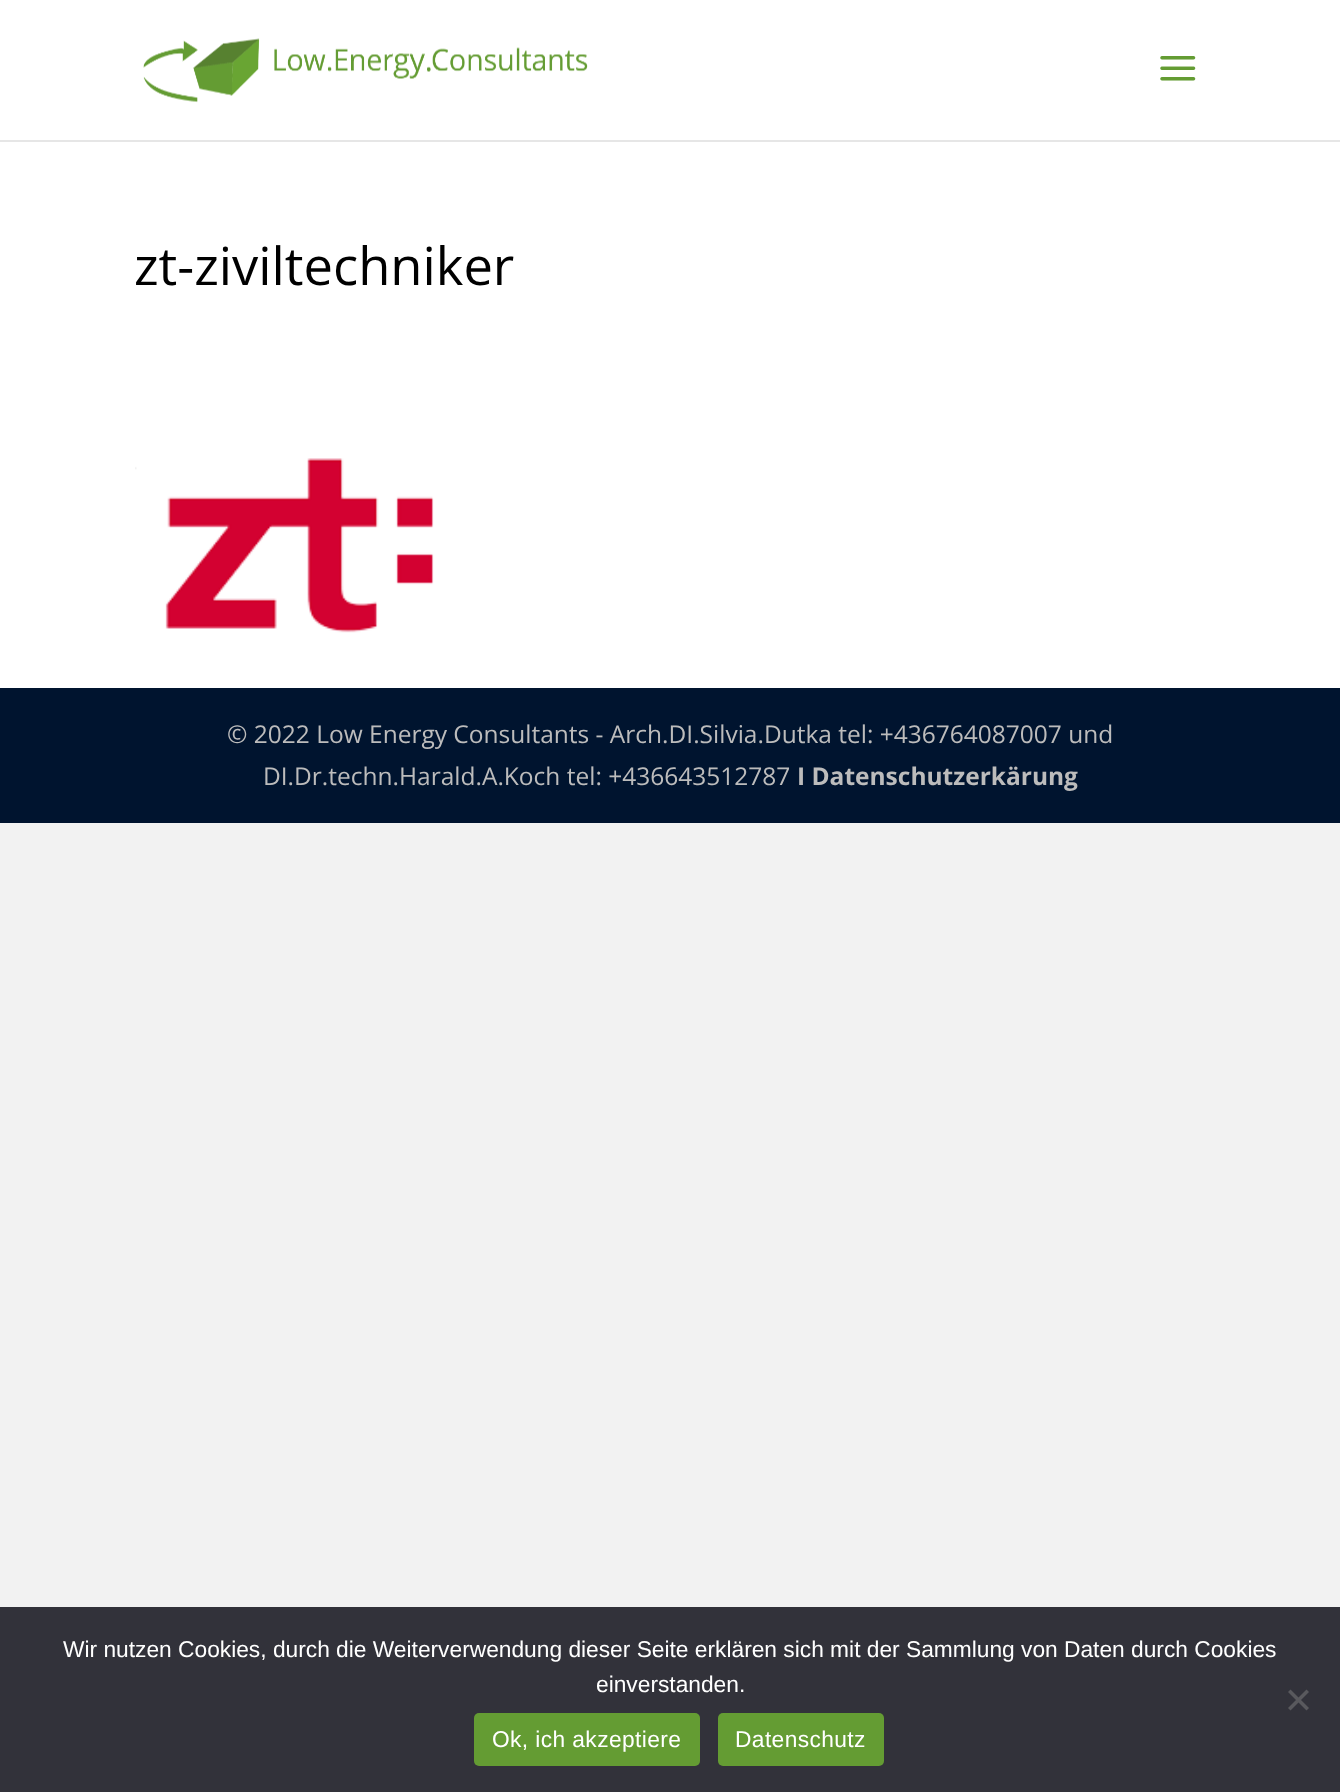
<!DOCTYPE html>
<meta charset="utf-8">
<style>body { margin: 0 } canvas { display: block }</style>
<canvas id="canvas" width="1340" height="1792"></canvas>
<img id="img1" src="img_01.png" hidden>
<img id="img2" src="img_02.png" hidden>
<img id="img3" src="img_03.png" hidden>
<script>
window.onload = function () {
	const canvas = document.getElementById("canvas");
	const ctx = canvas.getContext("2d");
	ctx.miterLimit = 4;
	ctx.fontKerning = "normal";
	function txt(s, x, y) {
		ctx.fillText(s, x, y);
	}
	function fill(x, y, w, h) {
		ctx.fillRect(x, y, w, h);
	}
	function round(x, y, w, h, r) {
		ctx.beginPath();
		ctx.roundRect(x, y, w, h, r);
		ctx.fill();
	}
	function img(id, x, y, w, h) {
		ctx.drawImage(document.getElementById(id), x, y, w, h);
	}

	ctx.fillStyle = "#F2F2F2";
	fill(0, 0, 1340, 1792);
	ctx.fillStyle = "#E6E6E6";
	ctx.beginPath();
	ctx.moveTo(0, 140);
	ctx.lineTo(0, 142);
	ctx.lineTo(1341, 142);
	ctx.lineTo(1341, 2);
	ctx.lineTo(1340, 2);
	ctx.lineTo(1340, 140);
	ctx.closePath();
	ctx.fill();
	ctx.fillStyle = "#FFFFFF";
	fill(0, 0, 1340, 140);
	img("img1", 143, 38, 445, 65);
	img("img2", 1160, 56, 36, 25);
	fill(0, 142, 1340, 546);
	img("img3", 135, 458, 299, 175);
	ctx.fillStyle = "#00142F";
	fill(0, 688, 1340, 135);
	ctx.fillStyle = "#32323A";
	fill(0, 1607, 1340, 185);
	ctx.fillStyle = "#59595D";
	ctx.beginPath();
	ctx.moveTo(1306.5, 1689.5);
	ctx.lineTo(1309, 1692);
	ctx.lineTo(1290.5, 1710.5);
	ctx.lineTo(1288, 1708);
	ctx.closePath();
	ctx.fill();
	ctx.beginPath();
	ctx.moveTo(1288, 1692);
	ctx.lineTo(1290.5, 1689.5);
	ctx.lineTo(1309, 1708);
	ctx.lineTo(1306.5, 1710.5);
	ctx.closePath();
	ctx.fill();
	ctx.fillStyle = "#649C33";
	round(474, 1713, 226, 53, 5);
	round(718, 1713, 166, 53, 5);
	ctx.font = "52.5px Open Sans";
	ctx.fillStyle = "#000000";
	txt("zt-ziviltechniker", 134, 285);
	ctx.font = "24.5px Open Sans";
	ctx.fillStyle = "#BCBCBC";
	txt("© 2022 Low Energy Consultants - Arch.DI.Silvia.Dutka tel: +436764087007 und", 227, 743);
	txt("DI.Dr.techn.Harald.A.Koch tel: +436643512787", 263, 785);
	ctx.font = "bold 24.5px Open Sans";
	txt("I Datenschutzerkärung", 797, 785);
	ctx.font = "22.75px Liberation Sans";
	ctx.fillStyle = "#FFFFFF";
	txt("Wir nutzen Cookies, durch die Weiterverwendung dieser Seite erklären sich mit der Sammlung von Daten durch Cookies", 63, 1657);
	txt("einverstanden.", 596, 1692);
	ctx.letterSpacing = "0.4px";
	txt("Ok, ich akzeptiere", 492, 1747);
	txt("Datenschutz", 735, 1747);
};
</script>
